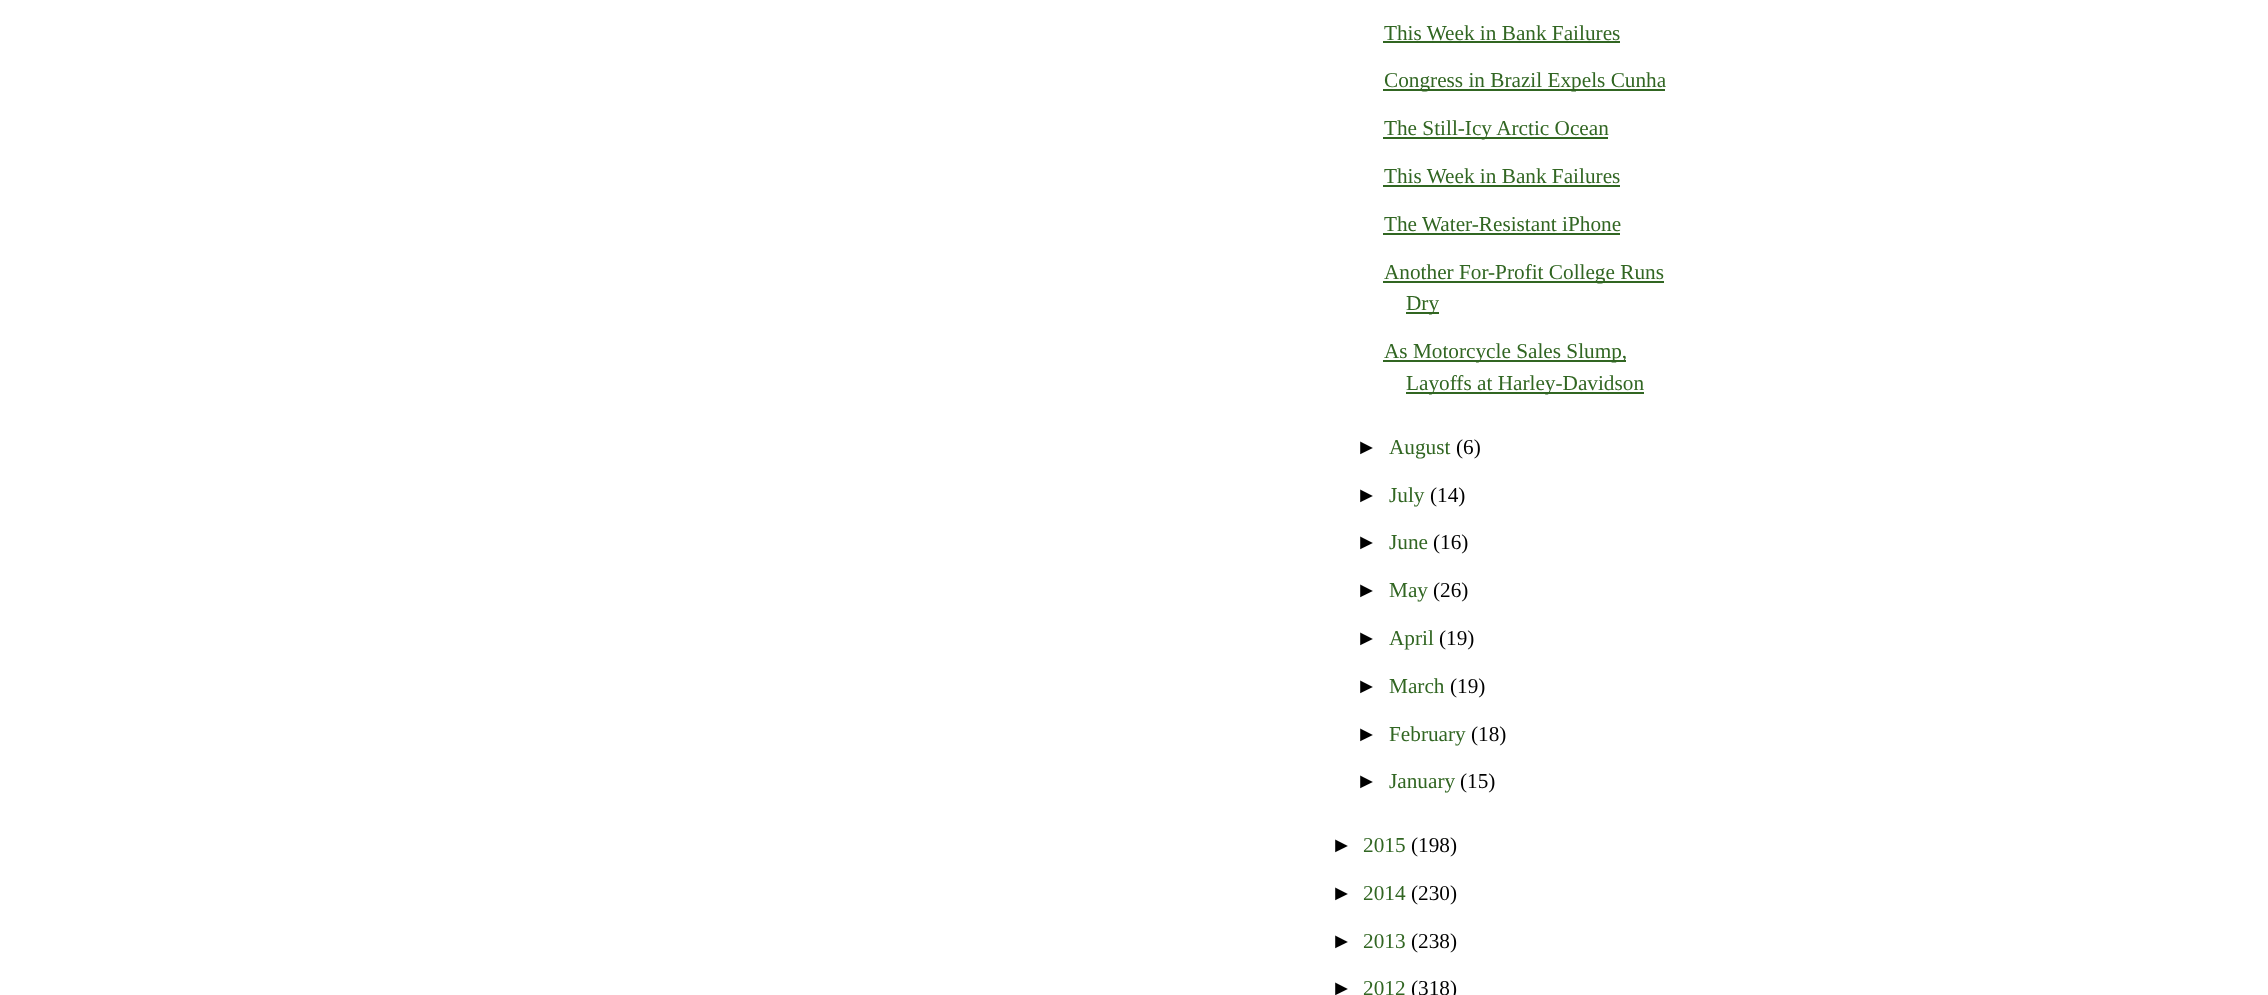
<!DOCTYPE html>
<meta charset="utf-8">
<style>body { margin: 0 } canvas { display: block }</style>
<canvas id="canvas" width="2268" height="995"></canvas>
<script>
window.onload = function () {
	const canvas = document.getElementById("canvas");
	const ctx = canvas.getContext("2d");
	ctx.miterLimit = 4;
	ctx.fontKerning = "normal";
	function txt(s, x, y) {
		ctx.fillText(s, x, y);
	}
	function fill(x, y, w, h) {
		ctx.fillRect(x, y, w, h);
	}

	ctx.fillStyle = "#FFFFFF";
	fill(0, 0, 2268, 995);
	ctx.fillStyle = "#316622";
	fill(1383, 41, 237, 2);
	fill(1383, 89, 282, 2);
	fill(1383, 137, 225, 2);
	fill(1383, 185, 237, 2);
	fill(1383, 233, 237, 2);
	fill(1383, 281, 281, 2);
	fill(1406, 312, 33, 2);
	fill(1383, 360, 243, 2);
	fill(1406, 392, 238, 2);
	ctx.font = "21.25px Liberation Serif";
	txt("This Week in Bank Failures", 1384, 40);
	txt("Congress in Brazil Expels Cunha", 1384, 87);
	txt("The Still-Icy Arctic Ocean", 1384, 135);
	txt("This Week in Bank Failures", 1384, 183);
	txt("The Water-Resistant iPhone", 1384, 231);
	txt("Another For-Profit College Runs", 1384, 279);
	txt("Dry", 1406, 310);
	txt("As Motorcycle Sales Slump,", 1384, 358);
	txt("Layoffs at Harley-Davidson", 1406, 390);
	ctx.font = "21.25px Liberation Sans";
	ctx.fillStyle = "#000000";
	txt("►", 1356, 454);
	ctx.font = "21.25px Liberation Serif";
	ctx.fillStyle = "#316622";
	txt("August", 1389, 454);
	ctx.fillStyle = "#000000";
	txt("(6)", 1456, 454);
	ctx.font = "21.25px Liberation Sans";
	txt("►", 1356, 502);
	ctx.font = "21.25px Liberation Serif";
	ctx.fillStyle = "#316622";
	txt("July", 1389, 502);
	ctx.fillStyle = "#000000";
	txt("(14)", 1430, 502);
	ctx.font = "21.25px Liberation Sans";
	txt("►", 1356, 549);
	ctx.font = "21.25px Liberation Serif";
	ctx.fillStyle = "#316622";
	txt("June", 1389, 549);
	ctx.fillStyle = "#000000";
	txt("(16)", 1433, 549);
	ctx.font = "21.25px Liberation Sans";
	txt("►", 1356, 597);
	ctx.font = "21.25px Liberation Serif";
	ctx.fillStyle = "#316622";
	txt("May", 1389, 597);
	ctx.fillStyle = "#000000";
	txt("(26)", 1433, 597);
	ctx.font = "21.25px Liberation Sans";
	txt("►", 1356, 645);
	ctx.font = "21.25px Liberation Serif";
	ctx.fillStyle = "#316622";
	txt("April", 1389, 645);
	ctx.fillStyle = "#000000";
	txt("(19)", 1439, 645);
	ctx.font = "21.25px Liberation Sans";
	txt("►", 1356, 693);
	ctx.font = "21.25px Liberation Serif";
	ctx.fillStyle = "#316622";
	txt("March", 1389, 693);
	ctx.fillStyle = "#000000";
	txt("(19)", 1450, 693);
	ctx.font = "21.25px Liberation Sans";
	txt("►", 1356, 741);
	ctx.font = "21.25px Liberation Serif";
	ctx.fillStyle = "#316622";
	txt("February", 1389, 741);
	ctx.fillStyle = "#000000";
	txt("(18)", 1471, 741);
	ctx.font = "21.25px Liberation Sans";
	txt("►", 1356, 788);
	ctx.font = "21.25px Liberation Serif";
	ctx.fillStyle = "#316622";
	txt("January", 1389, 788);
	ctx.fillStyle = "#000000";
	txt("(15)", 1460, 788);
	ctx.font = "21.25px Liberation Sans";
	txt("►", 1331, 852);
	ctx.font = "21.25px Liberation Serif";
	ctx.fillStyle = "#316622";
	txt("2015", 1363, 852);
	ctx.fillStyle = "#000000";
	txt("(198)", 1411, 852);
	ctx.font = "21.25px Liberation Sans";
	txt("►", 1331, 900);
	ctx.font = "21.25px Liberation Serif";
	ctx.fillStyle = "#316622";
	txt("2014", 1363, 900);
	ctx.fillStyle = "#000000";
	txt("(230)", 1411, 900);
	ctx.font = "21.25px Liberation Sans";
	txt("►", 1331, 948);
	ctx.font = "21.25px Liberation Serif";
	ctx.fillStyle = "#316622";
	txt("2013", 1363, 948);
	ctx.fillStyle = "#000000";
	txt("(238)", 1411, 948);
	ctx.font = "21.25px Liberation Sans";
	txt("►", 1331, 995);
	ctx.font = "21.25px Liberation Serif";
	ctx.fillStyle = "#316622";
	txt("2012", 1363, 995);
	ctx.fillStyle = "#000000";
	txt("(318)", 1411, 995);
};
</script>
